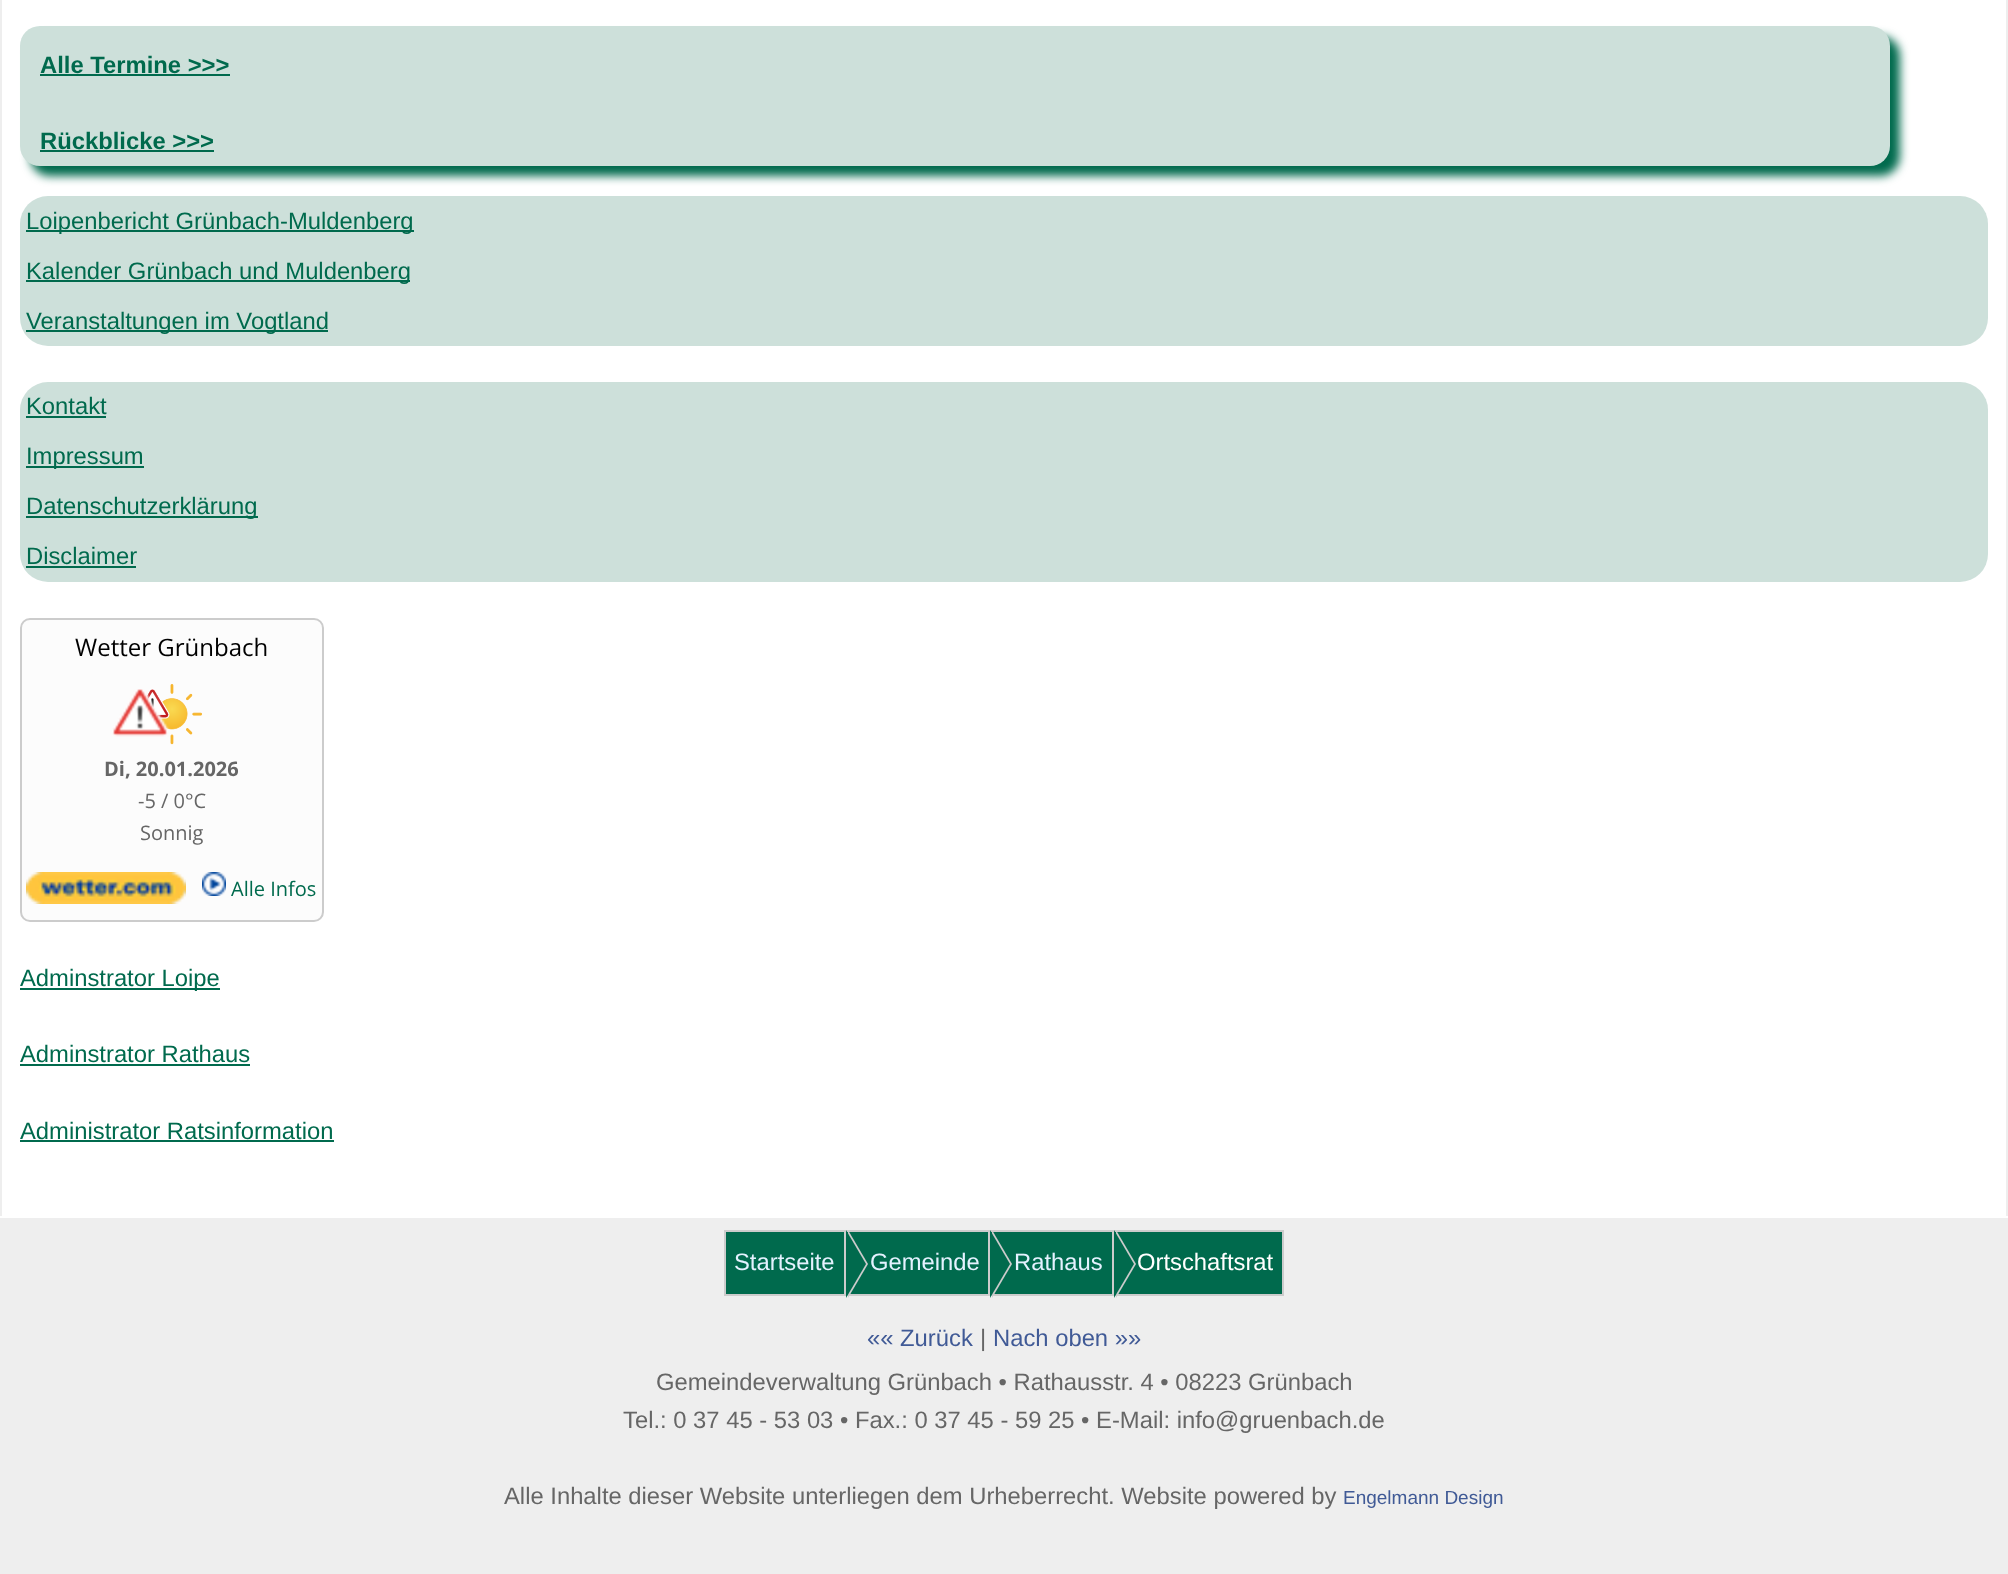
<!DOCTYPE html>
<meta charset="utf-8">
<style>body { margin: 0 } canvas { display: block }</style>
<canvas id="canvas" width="2008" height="1574"></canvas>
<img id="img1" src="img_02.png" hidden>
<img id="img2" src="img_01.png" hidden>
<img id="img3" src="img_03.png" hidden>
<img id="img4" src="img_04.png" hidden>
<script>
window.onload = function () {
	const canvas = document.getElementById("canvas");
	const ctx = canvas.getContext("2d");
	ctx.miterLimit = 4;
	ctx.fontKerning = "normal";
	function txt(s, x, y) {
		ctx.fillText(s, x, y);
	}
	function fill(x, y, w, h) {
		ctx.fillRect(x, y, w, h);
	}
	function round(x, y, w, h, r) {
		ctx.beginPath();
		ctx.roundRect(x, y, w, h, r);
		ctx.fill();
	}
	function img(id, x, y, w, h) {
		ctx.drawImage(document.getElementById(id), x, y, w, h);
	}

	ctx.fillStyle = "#EEEEEE";
	fill(0, 0, 2008, 1574);
	ctx.fillStyle = "#FFFFFF";
	fill(2, 0, 2004, 1216);
	ctx.fillStyle = "#006A4D";
	ctx.filter = "blur(5px)";
	ctx.beginPath();
	ctx.roundRect(30, 36, 1870, 140, 20);
	ctx.fill();
	ctx.filter = "none";
	ctx.fillStyle = "#CDE0DA";
	round(20, 26, 1870, 140, 20);
	ctx.fillStyle = "#006A4D";
	fill(40, 74, 190, 2);
	fill(40, 150, 174, 2);
	ctx.fillStyle = "#CDE0DA";
	round(20, 196, 1968, 150, 28);
	ctx.fillStyle = "#006A4D";
	fill(26, 230, 388, 2);
	fill(26, 280, 384, 2);
	fill(26, 330, 302, 2);
	ctx.fillStyle = "#CDE0DA";
	round(20, 382, 1968, 200, 28);
	ctx.fillStyle = "#006A4D";
	fill(26, 416, 80, 2);
	fill(26, 466, 118, 2);
	fill(26, 516, 232, 2);
	fill(26, 566, 110, 2);
	ctx.fillStyle = "#FCFCFC";
	ctx.beginPath();
	ctx.roundRect(21, 619, 302, 302, 9);
	ctx.fill();
	ctx.strokeStyle = "#CCCCCC";
	ctx.lineWidth = 2;
	ctx.stroke();
	img("img1", 145, 684, 57, 61);
	img("img2", 112, 689, 57, 48);
	img("img3", 26, 872, 160, 32);
	img("img4", 202, 872, 24, 24);
	ctx.fillStyle = "#006A4D";
	fill(20, 988, 200, 2);
	fill(20, 1064, 230, 2);
	fill(20, 1140, 314, 2);
	ctx.fillStyle = "#FFFFFF";
	fill(0, 1216, 2008, 2);
	ctx.fillStyle = "#006A4D";
	fill(726, 1232, 118, 62);
	ctx.fillStyle = "#CCCCCC";
	ctx.beginPath();
	ctx.moveTo(724, 1230);
	ctx.lineTo(846, 1230);
	ctx.lineTo(844, 1232);
	ctx.lineTo(726, 1232);
	ctx.closePath();
	ctx.fill();
	ctx.beginPath();
	ctx.moveTo(846, 1296);
	ctx.lineTo(724, 1296);
	ctx.lineTo(726, 1294);
	ctx.lineTo(844, 1294);
	ctx.closePath();
	ctx.fill();
	fill(724, 1230, 2, 66);
	ctx.fillStyle = "#006A4D";
	fill(847, 1232, 141, 62);
	ctx.fillStyle = "#CCCCCC";
	ctx.beginPath();
	ctx.moveTo(844, 1230);
	ctx.lineTo(990, 1230);
	ctx.lineTo(988, 1232);
	ctx.lineTo(846, 1232);
	ctx.closePath();
	ctx.fill();
	ctx.beginPath();
	ctx.moveTo(990, 1296);
	ctx.lineTo(844, 1296);
	ctx.lineTo(846, 1294);
	ctx.lineTo(988, 1294);
	ctx.closePath();
	ctx.fill();
	ctx.beginPath();
	ctx.moveTo(848, 1298);
	ctx.lineTo(848, 1230);
	ctx.lineTo(868, 1264);
	ctx.closePath();
	ctx.fill();
	ctx.fillStyle = "#006A4D";
	ctx.beginPath();
	ctx.moveTo(846, 1298);
	ctx.lineTo(846, 1230);
	ctx.lineTo(866, 1264);
	ctx.closePath();
	ctx.fill();
	ctx.fillStyle = "#CCCCCC";
	fill(844, 1230, 2, 66);
	ctx.fillStyle = "#006A4D";
	fill(991, 1232, 121, 62);
	ctx.fillStyle = "#CCCCCC";
	ctx.beginPath();
	ctx.moveTo(988, 1230);
	ctx.lineTo(1114, 1230);
	ctx.lineTo(1112, 1232);
	ctx.lineTo(990, 1232);
	ctx.closePath();
	ctx.fill();
	ctx.beginPath();
	ctx.moveTo(1114, 1296);
	ctx.lineTo(988, 1296);
	ctx.lineTo(990, 1294);
	ctx.lineTo(1112, 1294);
	ctx.closePath();
	ctx.fill();
	ctx.beginPath();
	ctx.moveTo(992, 1298);
	ctx.lineTo(992, 1230);
	ctx.lineTo(1012, 1264);
	ctx.closePath();
	ctx.fill();
	ctx.fillStyle = "#006A4D";
	ctx.beginPath();
	ctx.moveTo(990, 1298);
	ctx.lineTo(990, 1230);
	ctx.lineTo(1010, 1264);
	ctx.closePath();
	ctx.fill();
	ctx.fillStyle = "#CCCCCC";
	fill(988, 1230, 2, 66);
	ctx.fillStyle = "#006A4D";
	fill(1115, 1232, 167, 62);
	ctx.strokeRect(1113, 1231, 170, 64);
	ctx.fillStyle = "#CCCCCC";
	ctx.beginPath();
	ctx.moveTo(1116, 1298);
	ctx.lineTo(1116, 1230);
	ctx.lineTo(1136, 1264);
	ctx.closePath();
	ctx.fill();
	ctx.fillStyle = "#006A4D";
	ctx.beginPath();
	ctx.moveTo(1114, 1298);
	ctx.lineTo(1114, 1230);
	ctx.lineTo(1134, 1264);
	ctx.closePath();
	ctx.fill();
	ctx.font = "bold 23.8px Liberation Sans";
	txt("Alle Termine >>>", 40, 73);
	txt("Rückblicke >>>", 40, 149);
	ctx.font = "23.8px Liberation Sans";
	txt("Loipenbericht Grünbach-Muldenberg", 26, 229);
	txt("Kalender Grünbach und Muldenberg", 26, 279);
	txt("Veranstaltungen im Vogtland", 26, 329);
	txt("Kontakt", 26, 414);
	txt("Impressum", 26, 464);
	txt("Datenschutzerklärung", 26, 514);
	txt("Disclaimer", 26, 564);
	ctx.font = "24px Open Sans";
	ctx.fillStyle = "#000000";
	txt("Wetter Grünbach", 75, 656);
	ctx.font = "bold 20px Open Sans";
	ctx.fillStyle = "#666666";
	txt("Di, 20.01.2026", 104, 776);
	ctx.font = "20px Open Sans";
	txt("-5 / 0°C", 138, 808);
	txt("Sonnig", 140, 840);
	ctx.fillStyle = "#006A4D";
	txt("Alle Infos", 231, 896);
	ctx.font = "23.8px Liberation Sans";
	txt("Adminstrator Loipe", 20, 986);
	txt("Adminstrator Rathaus", 20, 1062);
	txt("Administrator Ratsinformation", 20, 1139);
	ctx.fillStyle = "#E4F2FF";
	txt("Startseite", 734, 1270);
	txt("Gemeinde", 870, 1270);
	txt("Rathaus", 1014, 1270);
	ctx.fillStyle = "#FFFFFF";
	txt("Ortschaftsrat", 1137, 1270);
	ctx.fillStyle = "#405A96";
	txt("«« Zurück", 867, 1346);
	ctx.fillStyle = "#666666";
	txt("|", 980, 1346);
	ctx.fillStyle = "#405A96";
	txt("Nach oben »»", 993, 1346);
	ctx.fillStyle = "#666666";
	txt("Gemeindeverwaltung Grünbach • Rathausstr. 4 • 08223 Grünbach", 656, 1390);
	txt("Tel.: 0 37 45 - 53 03 • Fax.: 0 37 45 - 59 25 • E-Mail: info@gruenbach.de", 623, 1428);
	txt("Alle Inhalte dieser Website unterliegen dem Urheberrecht. Website powered by", 504, 1504);
	ctx.font = "19px Liberation Sans";
	ctx.fillStyle = "#405A96";
	txt("Engelmann Design", 1343, 1504);
};
</script>
